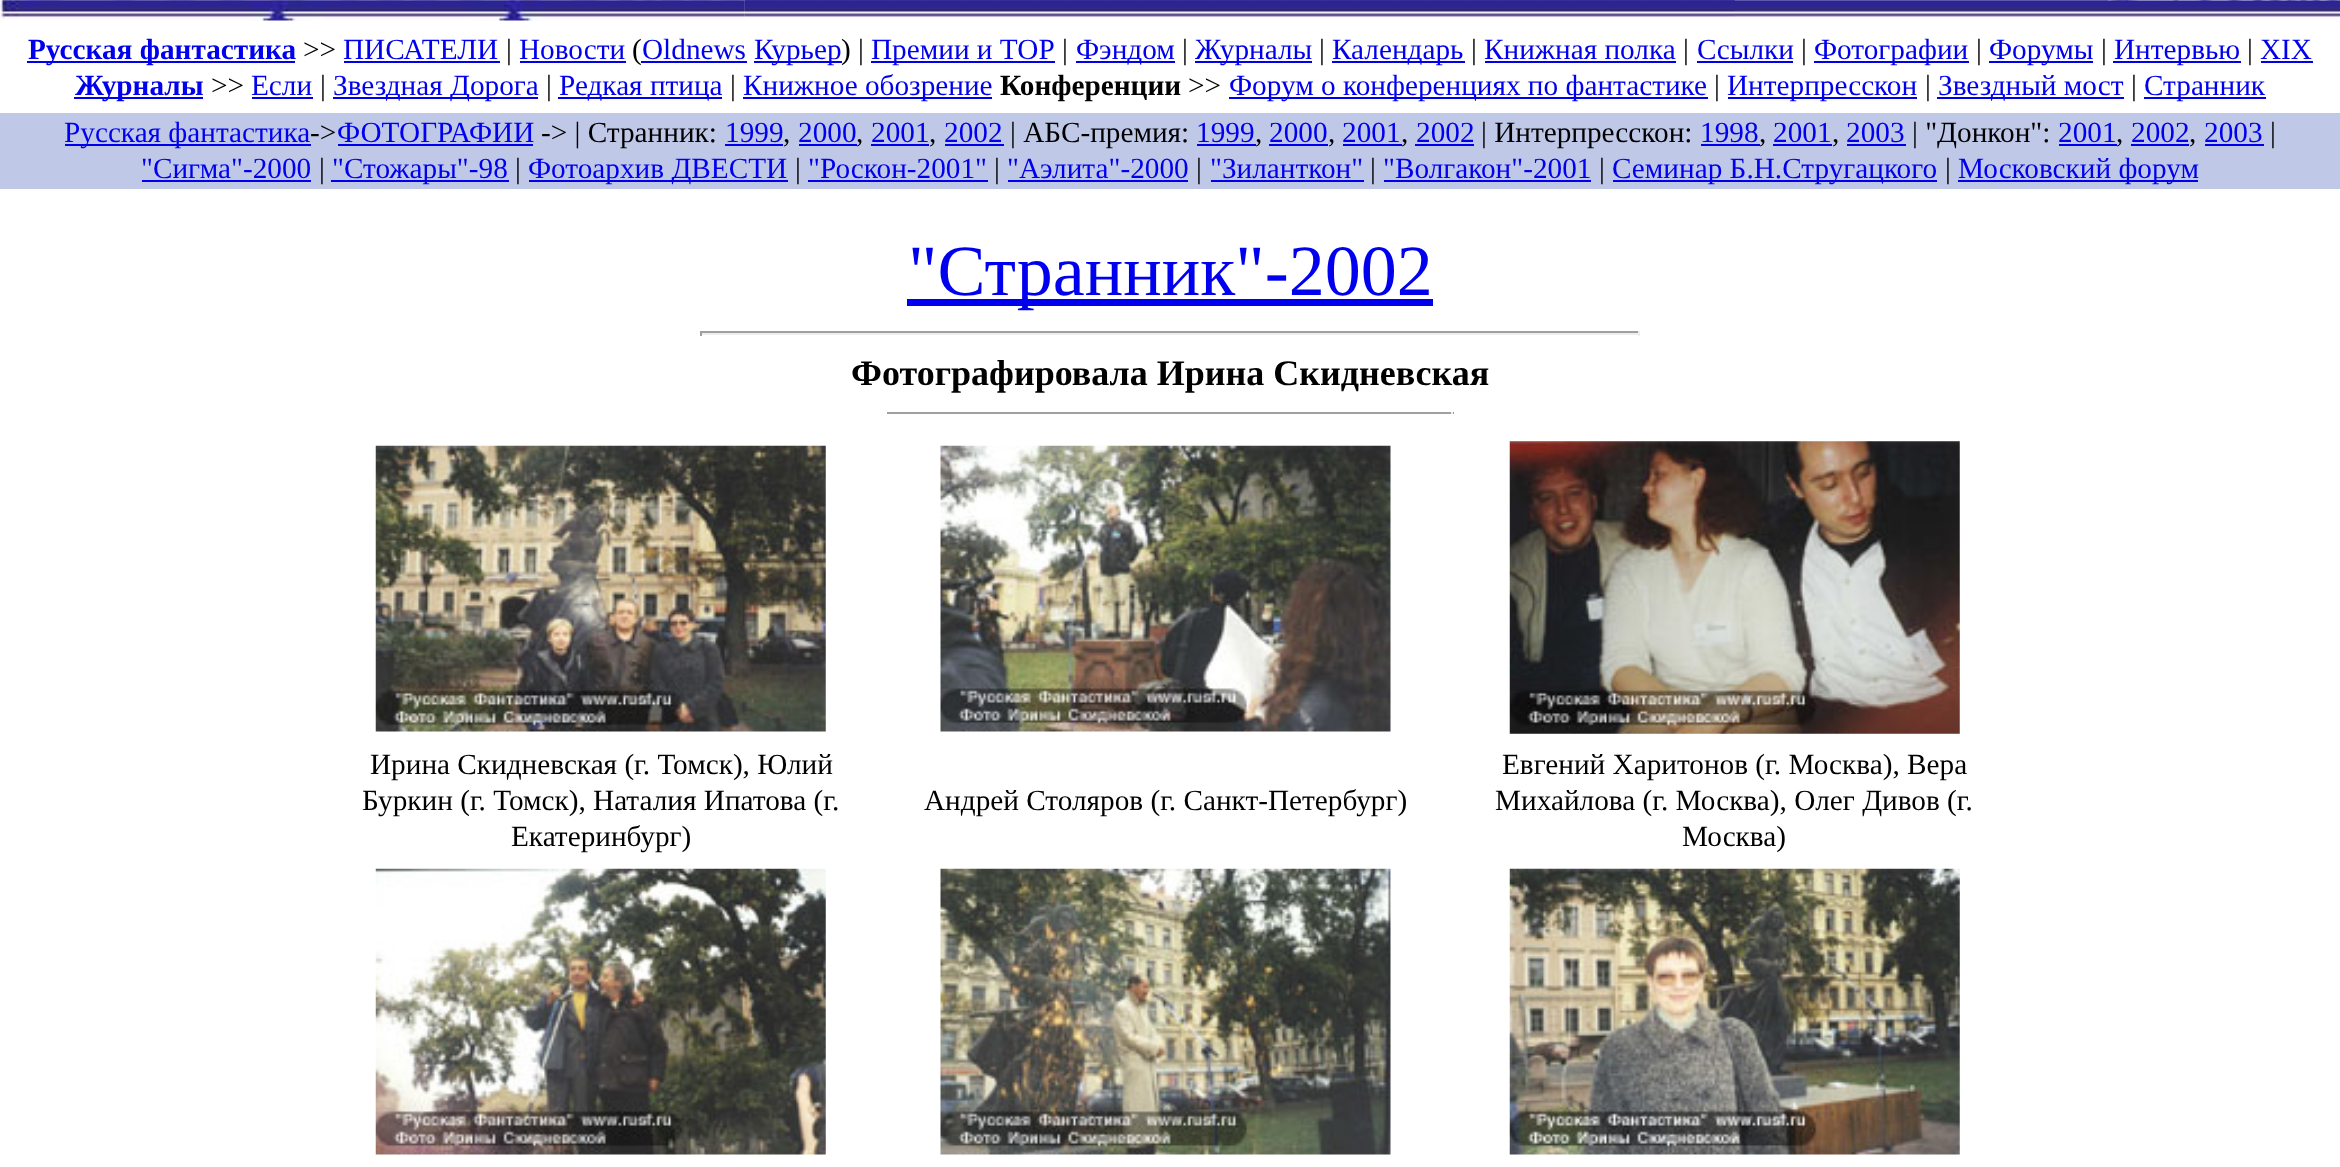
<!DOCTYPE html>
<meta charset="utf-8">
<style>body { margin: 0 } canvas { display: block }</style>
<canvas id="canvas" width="2340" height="1167"></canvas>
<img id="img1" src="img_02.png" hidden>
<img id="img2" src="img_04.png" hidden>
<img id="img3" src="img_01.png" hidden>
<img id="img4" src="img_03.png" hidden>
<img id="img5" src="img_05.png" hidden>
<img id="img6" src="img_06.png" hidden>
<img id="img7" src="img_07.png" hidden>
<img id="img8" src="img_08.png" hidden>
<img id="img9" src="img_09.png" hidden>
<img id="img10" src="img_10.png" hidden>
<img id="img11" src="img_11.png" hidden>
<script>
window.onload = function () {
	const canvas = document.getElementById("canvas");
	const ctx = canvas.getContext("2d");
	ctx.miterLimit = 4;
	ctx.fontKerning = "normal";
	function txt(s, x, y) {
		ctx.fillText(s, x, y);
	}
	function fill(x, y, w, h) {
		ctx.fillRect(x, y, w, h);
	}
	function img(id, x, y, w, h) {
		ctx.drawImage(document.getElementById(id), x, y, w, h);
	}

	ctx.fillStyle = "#FFFFFF";
	fill(0, 0, 2340, 1167);
	img("img1", 744, 0, 1596, 19);
	img("img2", 24, 0, 721, 1);
	img("img3", 0, 0, 745, 21);
	img("img4", 744, 0, 991, 17);
	img("img5", 2108, 0, 232, 1);
	ctx.fillStyle = "#0000EE";
	fill(27, 61, 268, 2);
	fill(344, 61, 156, 2);
	fill(520, 61, 106, 2);
	fill(754, 61, 88, 2);
	fill(871, 61, 184, 2);
	fill(1076, 61, 99, 2);
	fill(1195, 61, 117, 2);
	fill(1332, 61, 133, 2);
	fill(1485, 61, 191, 2);
	fill(1697, 61, 96, 2);
	fill(1814, 61, 155, 2);
	fill(1989, 61, 104, 2);
	fill(2113, 61, 128, 2);
	fill(2261, 61, 52, 2);
	fill(74, 97, 129, 2);
	fill(252, 97, 61, 2);
	fill(333, 97, 205, 2);
	fill(558, 97, 164, 2);
	fill(743, 97, 249, 2);
	fill(1229, 97, 479, 2);
	fill(1728, 97, 189, 2);
	fill(1937, 97, 187, 2);
	fill(2144, 97, 122, 2);
	ctx.fillStyle = "#C0C8E8";
	fill(0, 113, 2340, 76);
	ctx.fillStyle = "#0000EE";
	fill(65, 144, 246, 2);
	fill(338, 144, 195, 2);
	fill(725, 144, 58, 2);
	fill(799, 144, 58, 2);
	fill(871, 144, 58, 2);
	fill(945, 144, 59, 2);
	fill(1197, 144, 59, 2);
	fill(1269, 144, 59, 2);
	fill(1343, 144, 59, 2);
	fill(1415, 144, 59, 2);
	fill(1701, 144, 59, 2);
	fill(1773, 144, 59, 2);
	fill(1847, 144, 59, 2);
	fill(2059, 144, 58, 2);
	fill(2131, 144, 58, 2);
	fill(2205, 144, 59, 2);
	fill(142, 180, 169, 2);
	fill(331, 180, 178, 2);
	fill(529, 180, 259, 2);
	fill(808, 180, 180, 2);
	fill(1008, 180, 180, 2);
	fill(1211, 180, 153, 2);
	fill(1384, 180, 207, 2);
	fill(1613, 180, 324, 2);
	fill(1958, 180, 240, 2);
	fill(907, 299, 526, 7);
	ctx.fillStyle = "#9F9F9F";
	fill(700, 331, 940, 2);
	ctx.fillStyle = "#EEEEEE";
	fill(1638, 331, 2, 5);
	fill(700, 333, 940, 2);
	ctx.fillStyle = "#9F9F9F";
	fill(700, 331, 2, 5);
	fill(887, 412, 567, 2);
	ctx.fillStyle = "#EEEEEE";
	fill(1451, 412, 2, 2);
	img("img6", 375, 445, 451, 287);
	img("img7", 940, 445, 451, 287);
	img("img8", 1509, 441, 451, 293);
	img("img9", 375, 868, 451, 287);
	img("img10", 940, 868, 451, 287);
	img("img11", 1509, 868, 451, 287);
	ctx.font = "bold 29.25px Liberation Serif";
	ctx.fillStyle = "#0000EE";
	txt("Русская фантастика", 28, 59);
	ctx.font = "29.25px Liberation Serif";
	ctx.fillStyle = "#000000";
	txt(">>", 303, 59);
	ctx.fillStyle = "#0000EE";
	txt("ПИСАТЕЛИ", 343, 59);
	ctx.fillStyle = "#000000";
	txt("|", 506, 59);
	ctx.fillStyle = "#0000EE";
	txt("Новости", 519, 59);
	ctx.fillStyle = "#000000";
	txt("(", 632, 59);
	ctx.fillStyle = "#0000EE";
	fill(641, 61, 106, 2);
	txt("Oldnews", 642, 59);
	txt("Курьер", 754, 59);
	ctx.fillStyle = "#000000";
	txt(") |", 841, 59);
	ctx.fillStyle = "#0000EE";
	txt("Премии и ТОР", 871, 59);
	ctx.fillStyle = "#000000";
	txt("|", 1062, 59);
	ctx.fillStyle = "#0000EE";
	txt("Фэндом", 1076, 59);
	ctx.fillStyle = "#000000";
	txt("|", 1182, 59);
	ctx.fillStyle = "#0000EE";
	txt("Журналы", 1195, 59);
	ctx.fillStyle = "#000000";
	txt("|", 1319, 59);
	ctx.fillStyle = "#0000EE";
	txt("Календарь", 1332, 59);
	ctx.fillStyle = "#000000";
	txt("|", 1471, 59);
	ctx.fillStyle = "#0000EE";
	txt("Книжная полка", 1484, 59);
	ctx.fillStyle = "#000000";
	txt("|", 1683, 59);
	ctx.fillStyle = "#0000EE";
	txt("Ссылки", 1697, 59);
	ctx.fillStyle = "#000000";
	txt("|", 1801, 59);
	ctx.fillStyle = "#0000EE";
	txt("Фотографии", 1814, 59);
	ctx.fillStyle = "#000000";
	txt("|", 1976, 59);
	ctx.fillStyle = "#0000EE";
	txt("Форумы", 1989, 59);
	ctx.fillStyle = "#000000";
	txt("|", 2101, 59);
	ctx.fillStyle = "#0000EE";
	txt("Интервью", 2114, 59);
	ctx.fillStyle = "#000000";
	txt("|", 2247, 59);
	ctx.fillStyle = "#0000EE";
	txt("XIX", 2260, 59);
	ctx.font = "bold 29.25px Liberation Serif";
	txt("Журналы", 75, 95);
	ctx.font = "29.25px Liberation Serif";
	ctx.fillStyle = "#000000";
	txt(">>", 211, 95);
	ctx.fillStyle = "#0000EE";
	txt("Если", 251, 95);
	ctx.fillStyle = "#000000";
	txt("|", 320, 95);
	ctx.fillStyle = "#0000EE";
	txt("Звездная Дорога", 333, 95);
	ctx.fillStyle = "#000000";
	txt("|", 546, 95);
	ctx.fillStyle = "#0000EE";
	txt("Редкая птица", 559, 95);
	ctx.fillStyle = "#000000";
	txt("|", 730, 95);
	ctx.fillStyle = "#0000EE";
	txt("Книжное обозрение", 743, 95);
	ctx.font = "bold 29.25px Liberation Serif";
	ctx.fillStyle = "#000000";
	txt("Конференции", 1000, 95);
	ctx.font = "29.25px Liberation Serif";
	txt(">>", 1188, 95);
	ctx.fillStyle = "#0000EE";
	txt("Форум о конференциях по фантастике", 1229, 95);
	ctx.fillStyle = "#000000";
	txt("|", 1714, 95);
	ctx.fillStyle = "#0000EE";
	txt("Интерпресскон", 1727, 95);
	ctx.fillStyle = "#000000";
	txt("|", 1925, 95);
	ctx.fillStyle = "#0000EE";
	txt("Звездный мост", 1938, 95);
	ctx.fillStyle = "#000000";
	txt("|", 2131, 95);
	ctx.fillStyle = "#0000EE";
	txt("Странник", 2144, 95);
	txt("Русская фантастика", 64, 142);
	ctx.fillStyle = "#000000";
	txt("->", 310, 142);
	ctx.fillStyle = "#0000EE";
	txt("ФОТОГРАФИИ", 337, 142);
	ctx.fillStyle = "#000000";
	txt("-> | Странник:", 541, 142);
	ctx.fillStyle = "#0000EE";
	txt("1999", 725, 142);
	txt("2000", 798, 142);
	txt("2001", 871, 142);
	txt("2002", 944, 142);
	ctx.fillStyle = "#000000";
	txt("| АБС-премия:", 1010, 142);
	ctx.fillStyle = "#0000EE";
	txt("1999", 1196, 142);
	txt("2000", 1269, 142);
	txt("2001", 1342, 142);
	txt("2002", 1416, 142);
	ctx.fillStyle = "#000000";
	txt("| Интерпресскон:", 1481, 142);
	ctx.fillStyle = "#0000EE";
	txt("1998", 1700, 142);
	txt("2001", 1773, 142);
	txt("2003", 1846, 142);
	ctx.fillStyle = "#000000";
	txt("| \"Донкон\":", 1912, 142);
	ctx.fillStyle = "#0000EE";
	txt("2001", 2058, 142);
	txt("2002", 2131, 142);
	txt("2003", 2204, 142);
	ctx.fillStyle = "#000000";
	txt("|", 2270, 142);
	txt(",", 783, 142);
	txt(",", 856, 142);
	txt(",", 929, 142);
	txt(",", 1255, 142);
	txt(",", 1328, 142);
	txt(",", 1401, 142);
	txt(",", 1759, 142);
	txt(",", 1832, 142);
	txt(",", 2116, 142);
	txt(",", 2189, 142);
	ctx.fillStyle = "#0000EE";
	txt("\"Сигма\"-2000", 141, 178);
	ctx.fillStyle = "#000000";
	txt("|", 319, 178);
	ctx.fillStyle = "#0000EE";
	txt("\"Стожары\"-98", 332, 178);
	ctx.fillStyle = "#000000";
	txt("|", 515, 178);
	ctx.fillStyle = "#0000EE";
	txt("Фотоархив ДВЕСТИ", 528, 178);
	ctx.fillStyle = "#000000";
	txt("|", 795, 178);
	ctx.fillStyle = "#0000EE";
	txt("\"Роскон-2001\"", 808, 178);
	ctx.fillStyle = "#000000";
	txt("|", 994, 178);
	ctx.fillStyle = "#0000EE";
	txt("\"Аэлита\"-2000", 1007, 178);
	ctx.fillStyle = "#000000";
	txt("|", 1196, 178);
	ctx.fillStyle = "#0000EE";
	txt("\"Зиланткон\"", 1210, 178);
	ctx.fillStyle = "#000000";
	txt("|", 1370, 178);
	ctx.fillStyle = "#0000EE";
	txt("\"Волгакон\"-2001", 1383, 178);
	ctx.fillStyle = "#000000";
	txt("|", 1599, 178);
	ctx.fillStyle = "#0000EE";
	txt("Семинар Б.Н.Стругацкого", 1612, 178);
	ctx.fillStyle = "#000000";
	txt("|", 1945, 178);
	ctx.fillStyle = "#0000EE";
	txt("Московский форум", 1958, 178);
	ctx.font = "72px Liberation Serif";
	txt("\"Странник\"-2002", 908, 295);
	ctx.font = "bold 36px Liberation Serif";
	ctx.fillStyle = "#000000";
	txt("Фотографировала Ирина Скидневская", 851, 385);
	ctx.font = "29.25px Liberation Serif";
	txt("Ирина Скидневская (г. Томск), Юлий", 370, 774);
	txt("Буркин (г. Томск), Наталия Ипатова (г.", 362, 810);
	txt("Екатеринбург)", 511, 846);
	txt("Андрей Столяров (г. Санкт-Петербург)", 924, 810);
	txt("Евгений Харитонов (г. Москва), Вера", 1502, 774);
	txt("Михайлова (г. Москва), Олег Дивов (г.", 1495, 810);
	txt("Москва)", 1682, 846);
};
</script>
